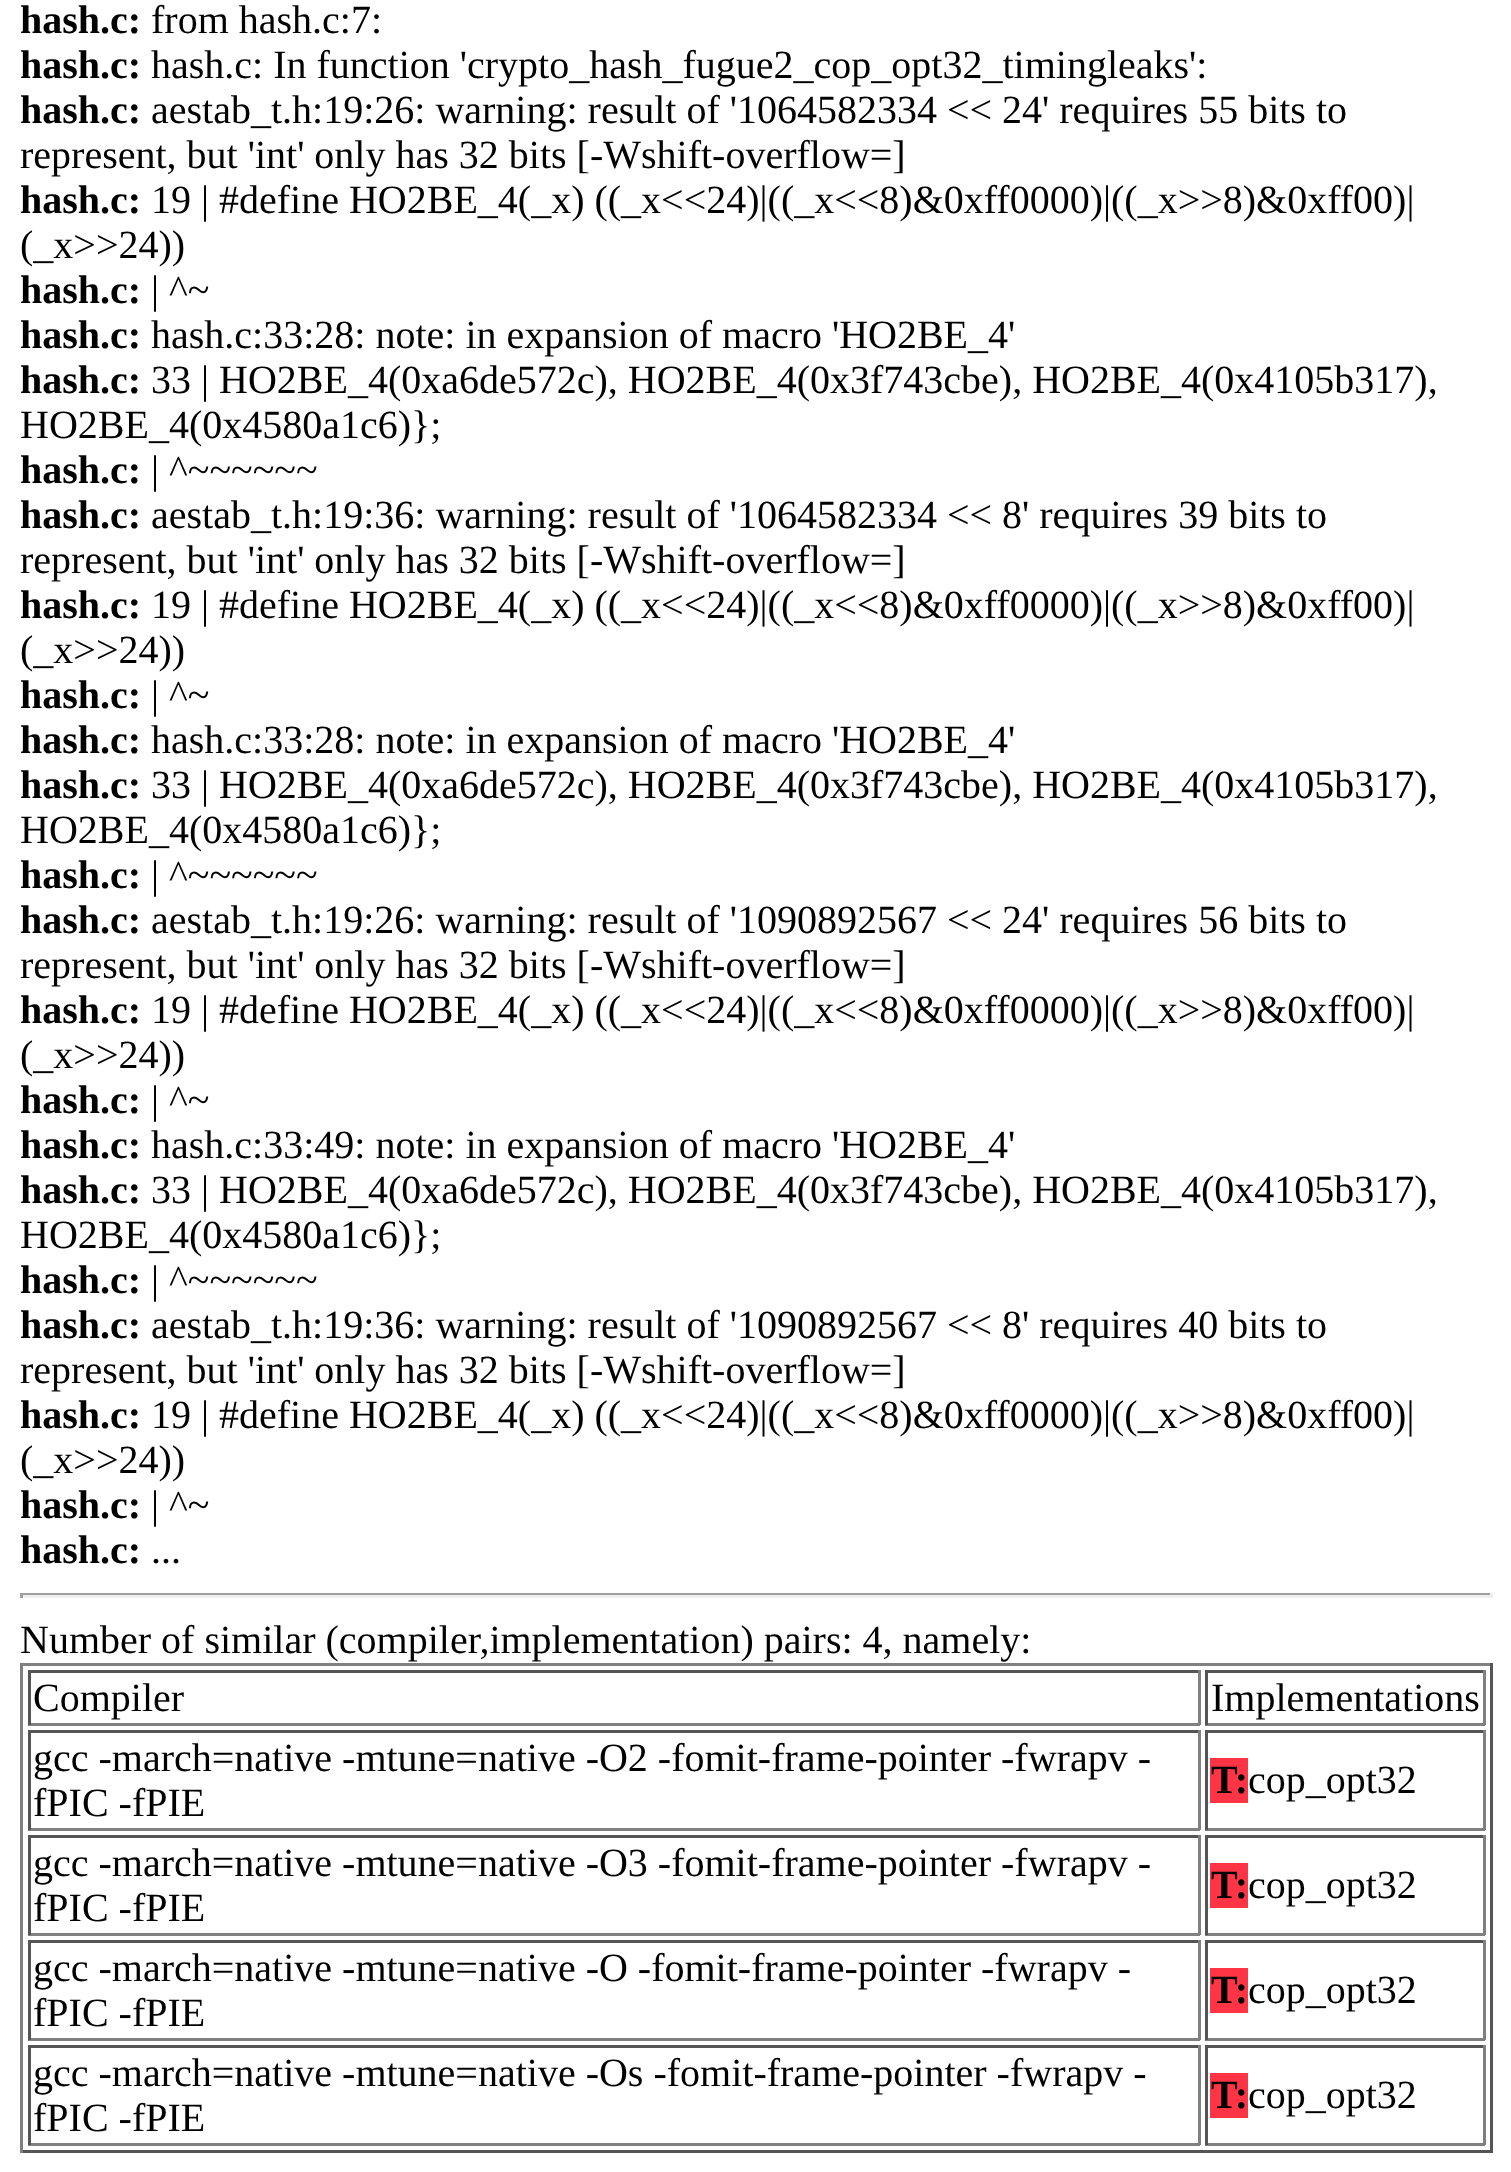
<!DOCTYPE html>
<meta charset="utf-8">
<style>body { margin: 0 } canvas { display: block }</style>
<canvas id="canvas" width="1511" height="2172"></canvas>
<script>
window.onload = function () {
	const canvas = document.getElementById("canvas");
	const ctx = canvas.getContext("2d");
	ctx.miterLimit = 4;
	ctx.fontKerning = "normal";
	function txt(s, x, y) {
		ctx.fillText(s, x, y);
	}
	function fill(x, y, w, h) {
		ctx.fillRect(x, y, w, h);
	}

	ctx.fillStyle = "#FFFFFF";
	fill(0, 0, 1511, 2172);
	ctx.fillStyle = "#9F9F9F";
	fill(20, 1593, 1473, 2);
	ctx.fillStyle = "#EEEEEE";
	fill(1490, 1593, 3, 5);
	fill(20, 1595, 1473, 3);
	ctx.fillStyle = "#9F9F9F";
	fill(20, 1593, 3, 5);
	ctx.fillStyle = "#808080";
	fill(20, 1663, 1473, 3);
	ctx.fillStyle = "#555555";
	fill(1490, 1663, 3, 490);
	fill(20, 2150, 1473, 3);
	ctx.fillStyle = "#808080";
	fill(20, 1663, 3, 490);
	ctx.fillStyle = "#555555";
	fill(28, 1670, 1172, 3);
	ctx.fillStyle = "#808080";
	fill(1198, 1670, 3, 55);
	fill(28, 1723, 1172, 3);
	ctx.fillStyle = "#555555";
	fill(28, 1670, 3, 55);
	fill(1205, 1670, 280, 3);
	ctx.fillStyle = "#808080";
	fill(1483, 1670, 3, 55);
	fill(1205, 1723, 280, 3);
	ctx.fillStyle = "#555555";
	fill(1205, 1670, 3, 55);
	fill(28, 1730, 1172, 3);
	ctx.fillStyle = "#808080";
	fill(1198, 1730, 3, 100);
	fill(28, 1828, 1172, 3);
	ctx.fillStyle = "#555555";
	fill(28, 1730, 3, 100);
	fill(1205, 1730, 280, 3);
	ctx.fillStyle = "#808080";
	fill(1483, 1730, 3, 100);
	fill(1205, 1828, 280, 3);
	ctx.fillStyle = "#555555";
	fill(1205, 1730, 3, 100);
	ctx.fillStyle = "#FF3545";
	fill(1210, 1758, 38, 45);
	ctx.fillStyle = "#555555";
	fill(28, 1835, 1172, 3);
	ctx.fillStyle = "#808080";
	fill(1198, 1835, 3, 100);
	fill(28, 1933, 1172, 3);
	ctx.fillStyle = "#555555";
	fill(28, 1835, 3, 100);
	fill(1205, 1835, 280, 3);
	ctx.fillStyle = "#808080";
	fill(1483, 1835, 3, 100);
	fill(1205, 1933, 280, 3);
	ctx.fillStyle = "#555555";
	fill(1205, 1835, 3, 100);
	ctx.fillStyle = "#FF3545";
	fill(1210, 1863, 38, 45);
	ctx.fillStyle = "#555555";
	fill(28, 1940, 1172, 3);
	ctx.fillStyle = "#808080";
	fill(1198, 1940, 3, 100);
	fill(28, 2038, 1172, 3);
	ctx.fillStyle = "#555555";
	fill(28, 1940, 3, 100);
	fill(1205, 1940, 280, 3);
	ctx.fillStyle = "#808080";
	fill(1483, 1940, 3, 100);
	fill(1205, 2038, 280, 3);
	ctx.fillStyle = "#555555";
	fill(1205, 1940, 3, 100);
	ctx.fillStyle = "#FF3545";
	fill(1210, 1968, 38, 45);
	ctx.fillStyle = "#555555";
	fill(28, 2045, 1172, 3);
	ctx.fillStyle = "#808080";
	fill(1198, 2045, 3, 100);
	fill(28, 2143, 1172, 3);
	ctx.fillStyle = "#555555";
	fill(28, 2045, 3, 100);
	fill(1205, 2045, 280, 3);
	ctx.fillStyle = "#808080";
	fill(1483, 2045, 3, 100);
	fill(1205, 2143, 280, 3);
	ctx.fillStyle = "#555555";
	fill(1205, 2045, 3, 100);
	ctx.fillStyle = "#FF3545";
	fill(1210, 2073, 38, 45);
	ctx.font = "bold 40px Liberation Serif";
	ctx.fillStyle = "#000000";
	txt("hash.c:", 20, 33);
	ctx.font = "40px Liberation Serif";
	txt("from hash.c:7:", 151, 33);
	ctx.font = "bold 40px Liberation Serif";
	txt("hash.c:", 20, 78);
	ctx.font = "40px Liberation Serif";
	txt("hash.c: In function 'crypto_hash_fugue2_cop_opt32_timingleaks':", 151, 78);
	ctx.font = "bold 40px Liberation Serif";
	txt("hash.c:", 20, 123);
	ctx.font = "40px Liberation Serif";
	txt("aestab_t.h:19:26: warning: result of '1064582334 << 24' requires 55 bits to", 151, 123);
	txt("represent, but 'int' only has 32 bits [-Wshift-overflow=]", 20, 168);
	ctx.font = "bold 40px Liberation Serif";
	txt("hash.c:", 20, 213);
	ctx.font = "40px Liberation Serif";
	txt("19 | #define HO2BE_4(_x) ((_x<<24)|((_x<<8)&0xff0000)|((_x>>8)&0xff00)|", 151, 213);
	txt("(_x>>24))", 20, 258);
	ctx.font = "bold 40px Liberation Serif";
	txt("hash.c:", 20, 303);
	ctx.font = "40px Liberation Serif";
	txt("| ^~", 151, 303);
	ctx.font = "bold 40px Liberation Serif";
	txt("hash.c:", 20, 348);
	ctx.font = "40px Liberation Serif";
	txt("hash.c:33:28: note: in expansion of macro 'HO2BE_4'", 151, 348);
	ctx.font = "bold 40px Liberation Serif";
	txt("hash.c:", 20, 393);
	ctx.font = "40px Liberation Serif";
	txt("33 | HO2BE_4(0xa6de572c), HO2BE_4(0x3f743cbe), HO2BE_4(0x4105b317),", 151, 393);
	txt("HO2BE_4(0x4580a1c6)};", 20, 438);
	ctx.font = "bold 40px Liberation Serif";
	txt("hash.c:", 20, 483);
	ctx.font = "40px Liberation Serif";
	txt("| ^~~~~~~", 151, 483);
	ctx.font = "bold 40px Liberation Serif";
	txt("hash.c:", 20, 528);
	ctx.font = "40px Liberation Serif";
	txt("aestab_t.h:19:36: warning: result of '1064582334 << 8' requires 39 bits to", 151, 528);
	txt("represent, but 'int' only has 32 bits [-Wshift-overflow=]", 20, 573);
	ctx.font = "bold 40px Liberation Serif";
	txt("hash.c:", 20, 618);
	ctx.font = "40px Liberation Serif";
	txt("19 | #define HO2BE_4(_x) ((_x<<24)|((_x<<8)&0xff0000)|((_x>>8)&0xff00)|", 151, 618);
	txt("(_x>>24))", 20, 663);
	ctx.font = "bold 40px Liberation Serif";
	txt("hash.c:", 20, 708);
	ctx.font = "40px Liberation Serif";
	txt("| ^~", 151, 708);
	ctx.font = "bold 40px Liberation Serif";
	txt("hash.c:", 20, 753);
	ctx.font = "40px Liberation Serif";
	txt("hash.c:33:28: note: in expansion of macro 'HO2BE_4'", 151, 753);
	ctx.font = "bold 40px Liberation Serif";
	txt("hash.c:", 20, 798);
	ctx.font = "40px Liberation Serif";
	txt("33 | HO2BE_4(0xa6de572c), HO2BE_4(0x3f743cbe), HO2BE_4(0x4105b317),", 151, 798);
	txt("HO2BE_4(0x4580a1c6)};", 20, 843);
	ctx.font = "bold 40px Liberation Serif";
	txt("hash.c:", 20, 888);
	ctx.font = "40px Liberation Serif";
	txt("| ^~~~~~~", 151, 888);
	ctx.font = "bold 40px Liberation Serif";
	txt("hash.c:", 20, 933);
	ctx.font = "40px Liberation Serif";
	txt("aestab_t.h:19:26: warning: result of '1090892567 << 24' requires 56 bits to", 151, 933);
	txt("represent, but 'int' only has 32 bits [-Wshift-overflow=]", 20, 978);
	ctx.font = "bold 40px Liberation Serif";
	txt("hash.c:", 20, 1023);
	ctx.font = "40px Liberation Serif";
	txt("19 | #define HO2BE_4(_x) ((_x<<24)|((_x<<8)&0xff0000)|((_x>>8)&0xff00)|", 151, 1023);
	txt("(_x>>24))", 20, 1068);
	ctx.font = "bold 40px Liberation Serif";
	txt("hash.c:", 20, 1113);
	ctx.font = "40px Liberation Serif";
	txt("| ^~", 151, 1113);
	ctx.font = "bold 40px Liberation Serif";
	txt("hash.c:", 20, 1158);
	ctx.font = "40px Liberation Serif";
	txt("hash.c:33:49: note: in expansion of macro 'HO2BE_4'", 151, 1158);
	ctx.font = "bold 40px Liberation Serif";
	txt("hash.c:", 20, 1203);
	ctx.font = "40px Liberation Serif";
	txt("33 | HO2BE_4(0xa6de572c), HO2BE_4(0x3f743cbe), HO2BE_4(0x4105b317),", 151, 1203);
	txt("HO2BE_4(0x4580a1c6)};", 20, 1248);
	ctx.font = "bold 40px Liberation Serif";
	txt("hash.c:", 20, 1293);
	ctx.font = "40px Liberation Serif";
	txt("| ^~~~~~~", 151, 1293);
	ctx.font = "bold 40px Liberation Serif";
	txt("hash.c:", 20, 1338);
	ctx.font = "40px Liberation Serif";
	txt("aestab_t.h:19:36: warning: result of '1090892567 << 8' requires 40 bits to", 151, 1338);
	txt("represent, but 'int' only has 32 bits [-Wshift-overflow=]", 20, 1383);
	ctx.font = "bold 40px Liberation Serif";
	txt("hash.c:", 20, 1428);
	ctx.font = "40px Liberation Serif";
	txt("19 | #define HO2BE_4(_x) ((_x<<24)|((_x<<8)&0xff0000)|((_x>>8)&0xff00)|", 151, 1428);
	txt("(_x>>24))", 20, 1473);
	ctx.font = "bold 40px Liberation Serif";
	txt("hash.c:", 20, 1518);
	ctx.font = "40px Liberation Serif";
	txt("| ^~", 151, 1518);
	ctx.font = "bold 40px Liberation Serif";
	txt("hash.c:", 20, 1563);
	ctx.font = "40px Liberation Serif";
	txt("...", 151, 1563);
	txt("Number of similar (compiler,implementation) pairs: 4, namely:", 20, 1653);
	txt("Compiler", 33, 1711);
	txt("Implementations", 1211, 1711);
	txt("gcc -march=native -mtune=native -O2 -fomit-frame-pointer -fwrapv -", 33, 1771);
	txt("fPIC -fPIE", 33, 1816);
	ctx.font = "bold 40px Liberation Serif";
	txt("T:", 1211, 1793);
	ctx.font = "40px Liberation Serif";
	txt("cop_opt32", 1248, 1793);
	txt("gcc -march=native -mtune=native -O3 -fomit-frame-pointer -fwrapv -", 33, 1876);
	txt("fPIC -fPIE", 33, 1921);
	ctx.font = "bold 40px Liberation Serif";
	txt("T:", 1211, 1898);
	ctx.font = "40px Liberation Serif";
	txt("cop_opt32", 1248, 1898);
	txt("gcc -march=native -mtune=native -O -fomit-frame-pointer -fwrapv -", 33, 1981);
	txt("fPIC -fPIE", 33, 2026);
	ctx.font = "bold 40px Liberation Serif";
	txt("T:", 1211, 2003);
	ctx.font = "40px Liberation Serif";
	txt("cop_opt32", 1248, 2003);
	txt("gcc -march=native -mtune=native -Os -fomit-frame-pointer -fwrapv -", 33, 2086);
	txt("fPIC -fPIE", 33, 2131);
	ctx.font = "bold 40px Liberation Serif";
	txt("T:", 1211, 2108);
	ctx.font = "40px Liberation Serif";
	txt("cop_opt32", 1248, 2108);
};
</script>
